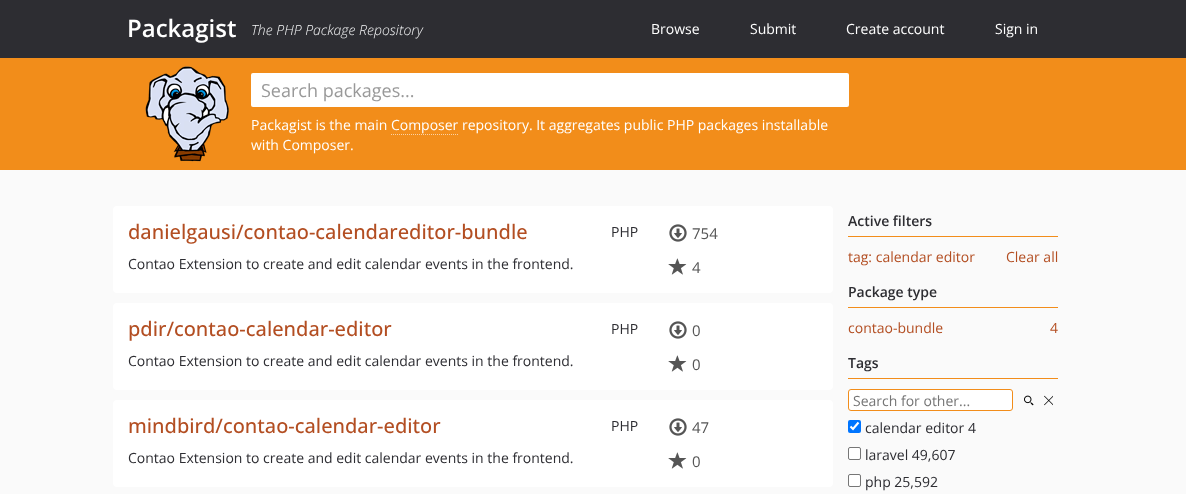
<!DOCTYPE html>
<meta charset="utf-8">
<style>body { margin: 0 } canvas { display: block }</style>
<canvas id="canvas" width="1186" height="494"></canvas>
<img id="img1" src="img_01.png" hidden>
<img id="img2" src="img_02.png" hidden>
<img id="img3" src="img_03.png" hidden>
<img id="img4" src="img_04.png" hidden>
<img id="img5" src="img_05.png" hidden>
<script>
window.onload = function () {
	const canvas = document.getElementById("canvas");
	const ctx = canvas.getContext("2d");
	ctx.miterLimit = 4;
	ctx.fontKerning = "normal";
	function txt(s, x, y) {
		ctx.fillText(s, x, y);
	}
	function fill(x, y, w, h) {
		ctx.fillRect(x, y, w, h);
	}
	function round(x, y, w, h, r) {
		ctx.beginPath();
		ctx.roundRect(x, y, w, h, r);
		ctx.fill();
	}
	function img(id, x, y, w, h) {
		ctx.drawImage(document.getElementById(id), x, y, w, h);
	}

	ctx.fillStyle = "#FAFAFA";
	fill(0, 0, 1186, 494);
	ctx.fillStyle = "#2D2D32";
	fill(0, 0, 1186, 58);
	ctx.fillStyle = "#F28D1A";
	fill(0, 58, 1186, 112);
	ctx.fillStyle = "#FFFFFF";
	round(251, 73, 598, 34, 2);
	img("img1", 145, 66, 84, 96);
	ctx.beginPath();
	ctx.moveTo(391, 134.5);
	ctx.lineTo(458, 134.5);
	ctx.strokeStyle = "#FAD1A3";
	ctx.setLineDash([1, 1]);
	ctx.stroke();
	round(113, 206, 720, 87, 4);
	img("img2", 669, 224, 18, 18);
	img("img3", 668, 258, 19, 17);
	round(113, 303, 720, 87, 4);
	img("img2", 669, 321, 18, 18);
	img("img3", 668, 355, 19, 17);
	round(113, 400, 720, 87, 4);
	img("img2", 669, 418, 18, 18);
	img("img3", 668, 452, 19, 17);
	ctx.fillStyle = "#F28D1A";
	fill(848, 236, 210, 1);
	fill(848, 307, 210, 1);
	fill(848, 378, 210, 1);
	ctx.fillStyle = "#FFFFFF";
	ctx.beginPath();
	ctx.roundRect(848.5, 389.5, 164, 21, 2.5);
	ctx.fill();
	ctx.strokeStyle = "#F28D1A";
	ctx.setLineDash([]);
	ctx.stroke();
	img("img4", 1024, 395, 10, 11);
	img("img5", 1044, 395, 9, 11);
	ctx.fillStyle = "#0075FF";
	round(848, 420, 13, 13, 2);
	ctx.beginPath();
	ctx.moveTo(850.5, 426.5);
	ctx.lineTo(853, 429);
	ctx.lineTo(858.5, 422.5);
	ctx.strokeStyle = "#FFFFFF";
	ctx.lineWidth = 2.1;
	ctx.stroke();
	ctx.fillStyle = "#FFFFFF";
	ctx.beginPath();
	ctx.roundRect(848.5, 447.5, 12, 12, 1.5);
	ctx.fill();
	ctx.strokeStyle = "#767676";
	ctx.lineWidth = 1;
	ctx.stroke();
	ctx.beginPath();
	ctx.roundRect(848.5, 474.5, 12, 12, 1.5);
	ctx.fill();
	ctx.stroke();
	ctx.font = "600 24px Open Sans";
	txt("Packagist", 127, 37);
	ctx.font = "italic 300 14px Open Sans";
	ctx.fillStyle = "#F3F4F5";
	txt("The PHP Package Repository", 251, 35);
	ctx.font = "14px Open Sans";
	ctx.fillStyle = "#FFFFFF";
	txt("Browse", 651, 34);
	txt("Submit", 750, 34);
	txt("Create account", 846, 34);
	txt("Sign in", 995, 34);
	ctx.font = "18px Open Sans";
	ctx.fillStyle = "#999999";
	txt("Search packages...", 261, 97);
	ctx.font = "14px Open Sans";
	ctx.fillStyle = "#FFFFFF";
	txt("Packagist is the main Composer repository. It aggregates public PHP packages installable", 251, 130);
	txt("with Composer.", 251, 150);
	ctx.font = "500 20px Open Sans";
	ctx.fillStyle = "#B34E22";
	txt("danielgausi/contao-calendareditor-bundle", 128, 239);
	ctx.font = "14px Open Sans";
	ctx.fillStyle = "#2D2D32";
	txt("PHP", 611, 237);
	txt("Contao Extension to create and edit calendar events in the frontend.", 128, 269);
	ctx.font = "15px Open Sans";
	ctx.fillStyle = "#555555";
	txt("754", 692, 239);
	txt("4", 692, 273);
	ctx.font = "500 20px Open Sans";
	ctx.fillStyle = "#B34E22";
	txt("pdir/contao-calendar-editor", 128, 336);
	ctx.font = "14px Open Sans";
	ctx.fillStyle = "#2D2D32";
	txt("PHP", 611, 334);
	txt("Contao Extension to create and edit calendar events in the frontend.", 128, 366);
	ctx.font = "15px Open Sans";
	ctx.fillStyle = "#555555";
	txt("0", 692, 336);
	txt("0", 692, 370);
	ctx.font = "500 20px Open Sans";
	ctx.fillStyle = "#B34E22";
	txt("mindbird/contao-calendar-editor", 128, 433);
	ctx.font = "14px Open Sans";
	ctx.fillStyle = "#2D2D32";
	txt("PHP", 611, 431);
	txt("Contao Extension to create and edit calendar events in the frontend.", 128, 463);
	ctx.font = "15px Open Sans";
	ctx.fillStyle = "#555555";
	txt("47", 692, 433);
	txt("0", 692, 467);
	ctx.font = "600 14px Open Sans";
	ctx.fillStyle = "#2D2D32";
	txt("Active filters", 848, 226);
	ctx.font = "14px Open Sans";
	ctx.fillStyle = "#B34E22";
	txt("tag: calendar editor", 848, 262);
	txt("Clear all", 1006, 262);
	ctx.font = "600 14px Open Sans";
	ctx.fillStyle = "#2D2D32";
	txt("Package type", 848, 297);
	ctx.font = "14px Open Sans";
	ctx.fillStyle = "#B34E22";
	txt("contao-bundle", 848, 333);
	txt("4", 1050, 333);
	ctx.font = "600 14px Open Sans";
	ctx.fillStyle = "#2D2D32";
	txt("Tags", 848, 368);
	ctx.font = "14px Open Sans";
	ctx.fillStyle = "#757575";
	txt("Search for other...", 853, 406);
	ctx.fillStyle = "#2D2D32";
	txt("calendar editor 4", 865, 433);
	txt("laravel 49,607", 865, 460);
	txt("php 25,592", 865, 487);
};
</script>
